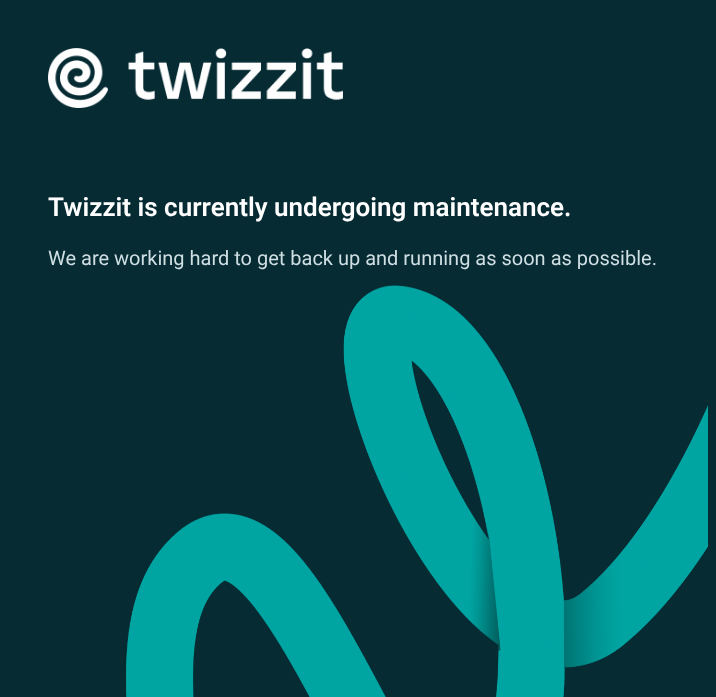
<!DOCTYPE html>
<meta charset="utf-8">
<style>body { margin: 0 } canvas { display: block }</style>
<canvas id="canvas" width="716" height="697"></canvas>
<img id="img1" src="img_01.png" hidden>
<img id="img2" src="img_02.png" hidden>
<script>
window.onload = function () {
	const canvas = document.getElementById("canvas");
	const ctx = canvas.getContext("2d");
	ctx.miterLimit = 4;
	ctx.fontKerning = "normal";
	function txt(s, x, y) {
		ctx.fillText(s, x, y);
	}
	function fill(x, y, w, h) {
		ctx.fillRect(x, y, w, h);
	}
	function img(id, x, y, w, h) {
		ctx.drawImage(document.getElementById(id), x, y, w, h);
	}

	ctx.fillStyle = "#062B33";
	fill(0, 0, 716, 697);
	img("img1", 48, 48, 295, 60);
	img("img2", 126, 285, 582, 412);
	ctx.font = "600 26px Roboto";
	ctx.fillStyle = "#FFFFFF";
	txt("Twizzit is currently undergoing maintenance.", 48, 216);
	ctx.font = "20px Roboto";
	ctx.fillStyle = "#CFDFE3";
	txt("We are working hard to get back up and running as soon as possible.", 48, 265);
};
</script>
